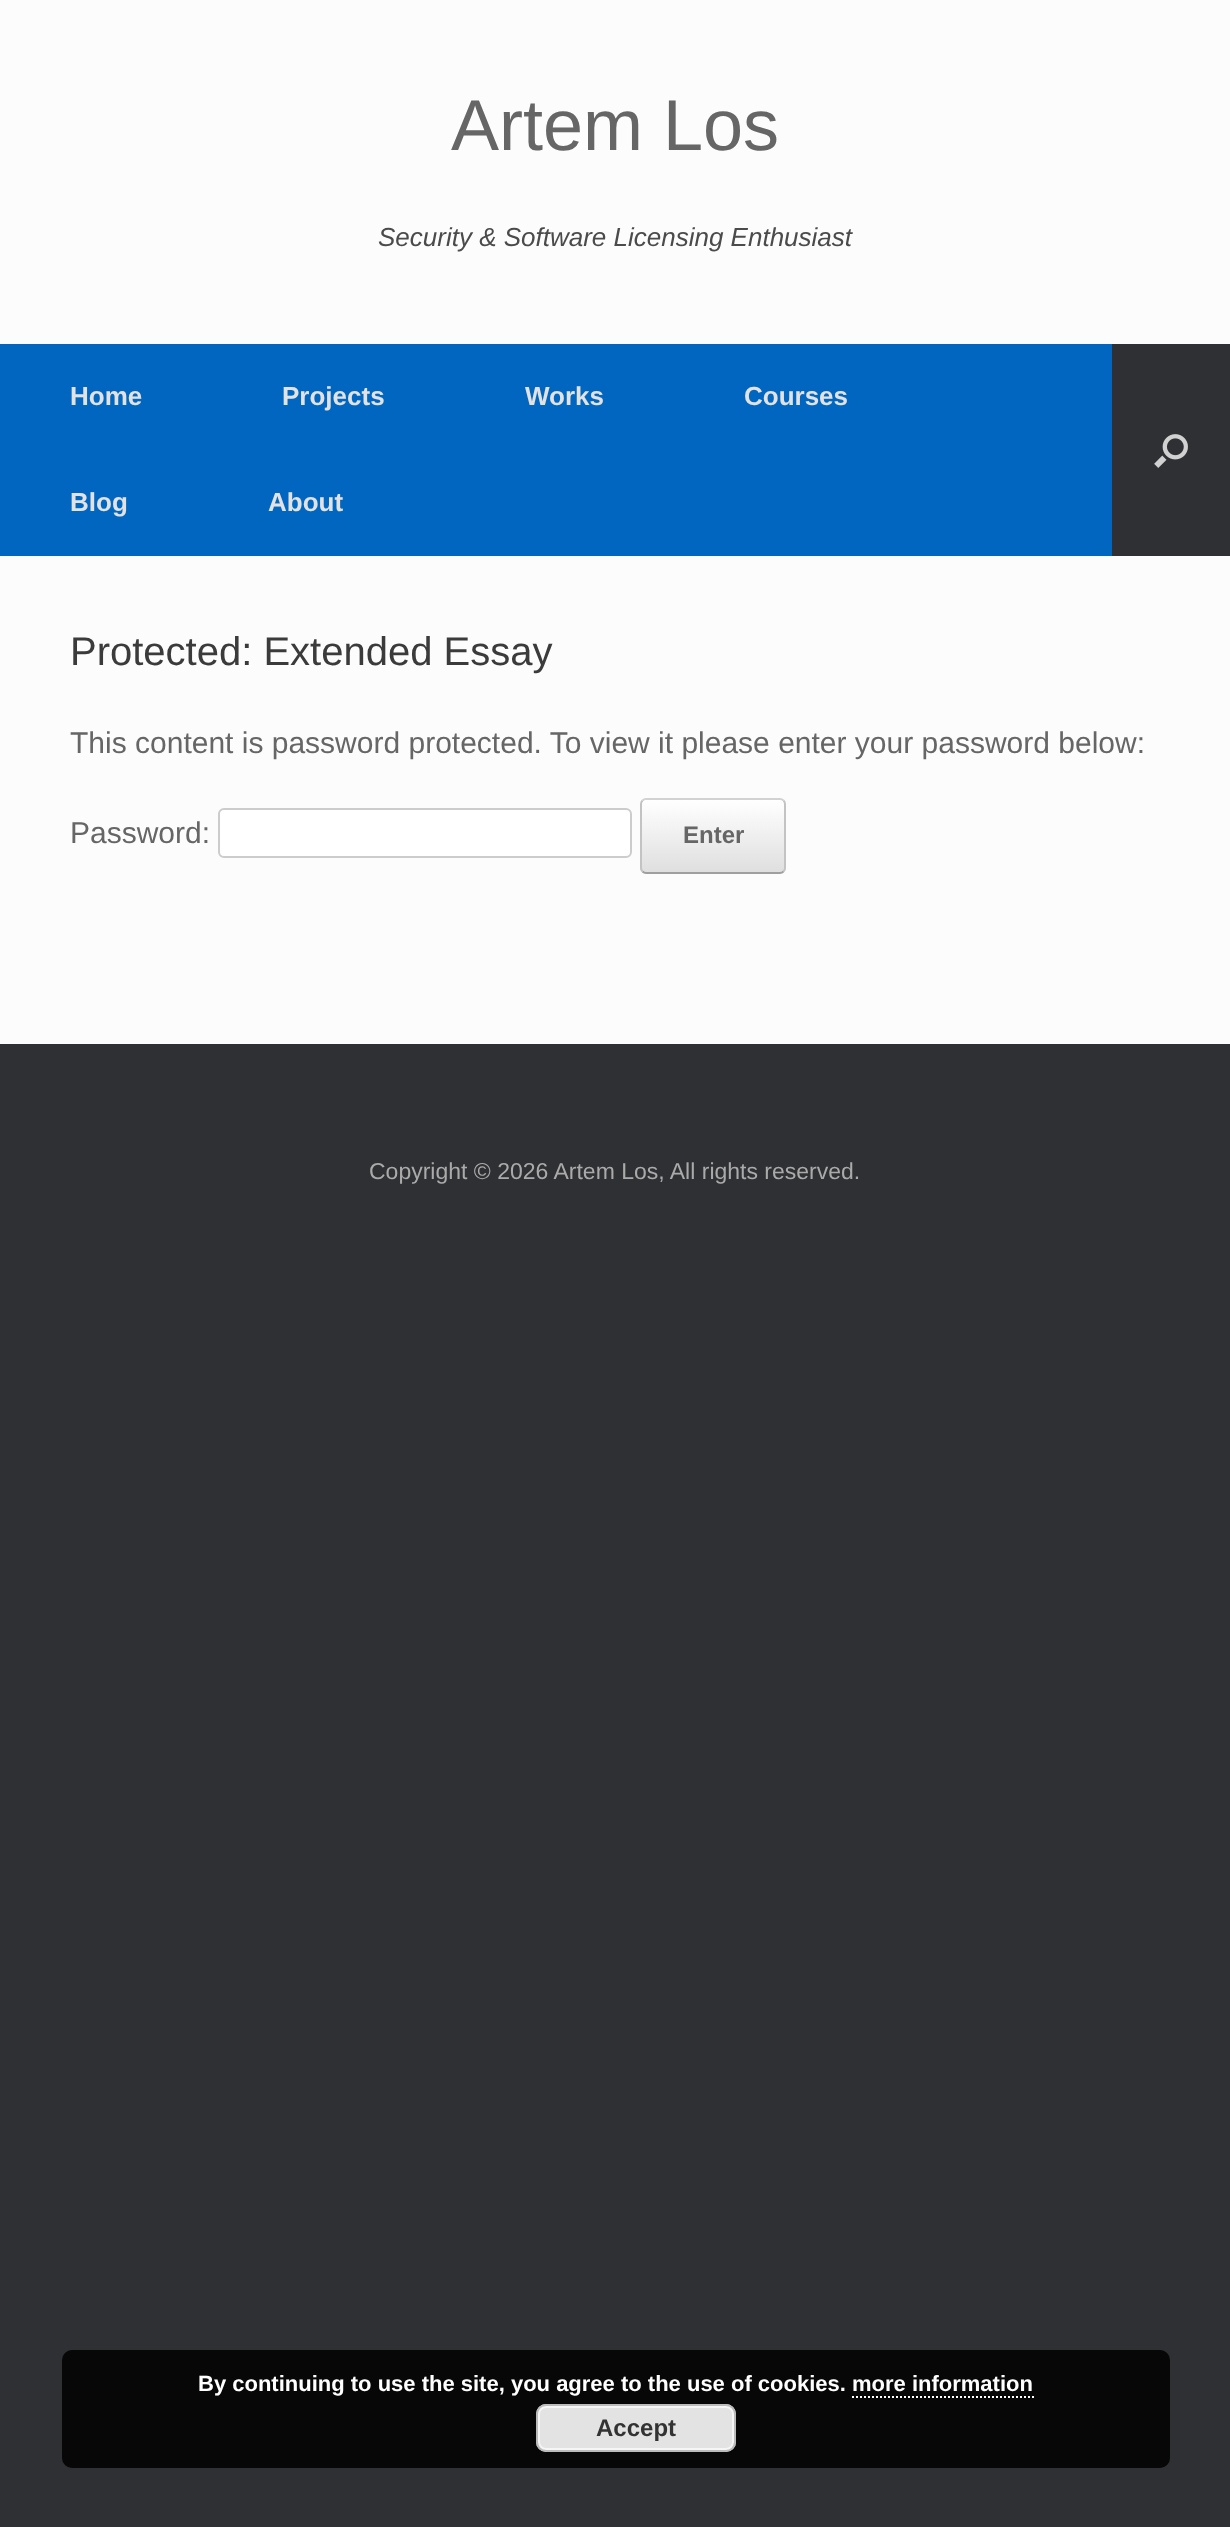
<!DOCTYPE html>
<meta charset="utf-8">
<style>body { margin: 0 } canvas { display: block }</style>
<canvas id="canvas" width="1230" height="2527"></canvas>
<img id="img1" src="img_01.png" hidden>
<script>
window.onload = function () {
	const canvas = document.getElementById("canvas");
	const ctx = canvas.getContext("2d");
	ctx.miterLimit = 4;
	ctx.fontKerning = "normal";
	function txt(s, x, y) {
		ctx.fillText(s, x, y);
	}
	function fill(x, y, w, h) {
		ctx.fillRect(x, y, w, h);
	}
	function round(x, y, w, h, r) {
		ctx.beginPath();
		ctx.roundRect(x, y, w, h, r);
		ctx.fill();
	}
	function img(id, x, y, w, h) {
		ctx.drawImage(document.getElementById(id), x, y, w, h);
	}
	let gradient;

	ctx.fillStyle = "#2F3033";
	fill(0, 0, 1230, 2527);
	ctx.fillStyle = "#FCFCFC";
	fill(0, 0, 1230, 344);
	ctx.fillStyle = "#0066BF";
	fill(0, 344, 1112, 212);
	img("img1", 1154, 434, 34, 34);
	ctx.fillStyle = "#FCFCFC";
	fill(0, 556, 1230, 488);
	ctx.fillStyle = "#FFFFFF";
	ctx.beginPath();
	ctx.roundRect(219, 809, 412, 48, 5);
	ctx.fill();
	ctx.strokeStyle = "#CCCCCC";
	ctx.lineWidth = 2;
	ctx.stroke();
	ctx.save();
	ctx.beginPath();
	ctx.roundRect(640, 798, 146, 76, 6);
	ctx.clip();
	gradient = ctx.createLinearGradient(642, 872, 642, 800);
	gradient.addColorStop(0, "#DFDFDF");
	gradient.addColorStop(1, "#FFFFFF");
	ctx.fillStyle = gradient;
	fill(640, 800, 146, 72);
	ctx.restore();
	ctx.beginPath();
	ctx.moveTo(642.5, 800.5);
	ctx.bezierCurveTo(643.5, 799.5, 644.5, 799, 646, 799);
	ctx.lineTo(780, 799);
	ctx.bezierCurveTo(781.5, 799, 782.5, 799.5, 783.5, 800.5);
	ctx.strokeStyle = "#D2D2D2";
	ctx.stroke();
	ctx.beginPath();
	ctx.moveTo(783.5, 800.5);
	ctx.bezierCurveTo(784.5, 801.5, 785, 802.5, 785, 804);
	ctx.lineTo(785, 868);
	ctx.bezierCurveTo(785, 869.5, 784.5, 870.5, 783.5, 871.5);
	ctx.strokeStyle = "#C3C3C3";
	ctx.stroke();
	ctx.beginPath();
	ctx.moveTo(783.5, 871.5);
	ctx.bezierCurveTo(782.5, 872.5, 781.5, 873, 780, 873);
	ctx.lineTo(646, 873);
	ctx.bezierCurveTo(644.5, 873, 643.5, 872.5, 642.5, 871.5);
	ctx.strokeStyle = "#9F9F9F";
	ctx.stroke();
	ctx.beginPath();
	ctx.moveTo(642.5, 871.5);
	ctx.bezierCurveTo(641.5, 870.5, 641, 869.5, 641, 868);
	ctx.lineTo(641, 804);
	ctx.bezierCurveTo(641, 802.5, 641.5, 801.5, 642.5, 800.5);
	ctx.strokeStyle = "#C3C3C3";
	ctx.stroke();
	ctx.fillStyle = "#070708";
	round(62, 2350, 1108, 118, 10);
	ctx.beginPath();
	ctx.moveTo(852, 2397);
	ctx.lineTo(1034, 2397);
	ctx.strokeStyle = "#FFFFFF";
	ctx.setLineDash([2, 2]);
	ctx.stroke();
	ctx.fillStyle = "#E3E3E3";
	round(536, 2404, 200, 48, 10);
	ctx.beginPath();
	ctx.roundRect(539, 2407, 194, 42, 7);
	ctx.strokeStyle = "#F6F6F6";
	ctx.setLineDash([]);
	ctx.stroke();
	ctx.beginPath();
	ctx.roundRect(537, 2405, 198, 46, 9);
	ctx.strokeStyle = "#BBBBBB";
	ctx.stroke();
	ctx.font = "72px Liberation Sans";
	ctx.fillStyle = "#666666";
	txt("Artem Los", 451, 150);
	ctx.font = "italic 26px Liberation Sans";
	ctx.fillStyle = "#4B4B4B";
	txt("Security & Software Licensing Enthusiast", 378, 246);
	ctx.font = "bold 26px Liberation Sans";
	ctx.fillStyle = "#E2E2E2";
	txt("Home", 70, 405);
	txt("Projects", 282, 405);
	txt("Works", 525, 405);
	txt("Courses", 744, 405);
	txt("Blog", 70, 511);
	txt("About", 268, 511);
	ctx.font = "40px Liberation Sans";
	ctx.fillStyle = "#3B3B3B";
	txt("Protected: Extended Essay", 70, 665);
	ctx.font = "30px Liberation Sans";
	ctx.fillStyle = "#666666";
	txt("This content is password protected. To view it please enter your password below:", 70, 753);
	txt("Password:", 70, 843);
	ctx.font = "bold 24px Liberation Sans";
	txt("Enter", 683, 843);
	ctx.font = "23px Liberation Sans";
	ctx.fillStyle = "#AAAAAA";
	txt("Copyright © 2026 Artem Los, All rights reserved.", 369, 1179);
	ctx.font = "bold 22px Liberation Sans";
	ctx.fillStyle = "#FFFFFF";
	txt("By continuing to use the site, you agree to the use of cookies. more information", 198, 2391);
	ctx.font = "bold 24px Liberation Sans";
	ctx.fillStyle = "#333333";
	txt("Accept", 596, 2436);
};
</script>
